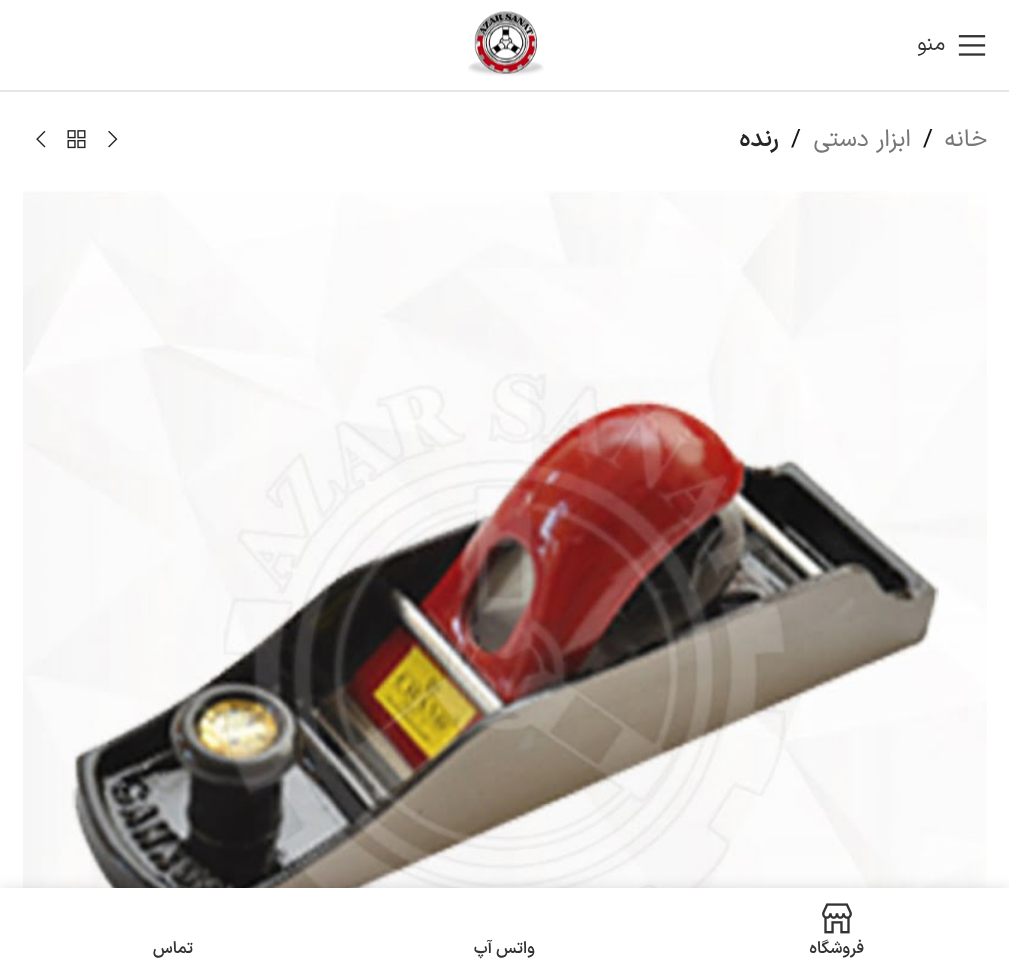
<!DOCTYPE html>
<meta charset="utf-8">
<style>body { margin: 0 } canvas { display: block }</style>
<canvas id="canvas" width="1009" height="970"></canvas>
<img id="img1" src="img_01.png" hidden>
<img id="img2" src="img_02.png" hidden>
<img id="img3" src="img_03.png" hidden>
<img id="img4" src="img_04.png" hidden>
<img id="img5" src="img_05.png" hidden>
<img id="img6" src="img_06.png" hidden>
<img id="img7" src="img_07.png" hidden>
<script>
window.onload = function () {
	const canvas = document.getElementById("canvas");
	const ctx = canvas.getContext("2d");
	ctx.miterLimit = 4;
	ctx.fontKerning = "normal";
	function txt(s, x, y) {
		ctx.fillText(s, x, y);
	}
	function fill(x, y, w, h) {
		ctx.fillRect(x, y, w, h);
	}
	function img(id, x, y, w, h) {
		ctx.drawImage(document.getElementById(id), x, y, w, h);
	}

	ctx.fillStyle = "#FFFFFF";
	fill(0, 0, 1009, 970);
	ctx.fillStyle = "#E6E6E6";
	fill(0, 90, 1009, 2);
	img("img1", 958, 35, 28, 21);
	img("img2", 468, 11, 76, 65);
	img("img3", 108, 130, 10, 18);
	img("img4", 67, 130, 19, 19);
	img("img5", 36, 130, 10, 18);
	img("img6", 23, 191, 964, 697);
	ctx.fillStyle = "rgba(0, 0, 0, 0.12)";
	ctx.filter = "blur(7px)";
	ctx.beginPath();
	ctx.rect(0, 888, 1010, 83);
	ctx.fill();
	ctx.filter = "none";
	ctx.fillStyle = "#FFFFFF";
	fill(0, 888, 1009, 82);
	img("img7", 822, 903, 30, 31);
	ctx.direction = "rtl";
	ctx.font = "21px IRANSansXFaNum";
	ctx.fillStyle = "#333333";
	txt("منو", 945, 50);
	ctx.font = "24px IRANSansXFaNum";
	ctx.fillStyle = "#767676";
	txt("خانه", 987, 146);
	ctx.direction = "ltr";
	ctx.fillStyle = "#141414";
	txt("/", 923, 146);
	ctx.direction = "rtl";
	ctx.fillStyle = "#767676";
	txt("ابزار دستی", 911, 146);
	ctx.direction = "ltr";
	ctx.fillStyle = "#141414";
	txt("/", 791, 146);
	ctx.direction = "rtl";
	ctx.font = "600 24px IRANSansXFaNum";
	ctx.fillStyle = "#242424";
	txt("رنده", 779, 146);
	ctx.font = "600 16.5px IRANSansXFaNum";
	ctx.fillStyle = "#333333";
	txt("فروشگاه", 864, 953);
	txt("واتس آپ", 535, 953);
	txt("تماس", 193, 953);
};
</script>
